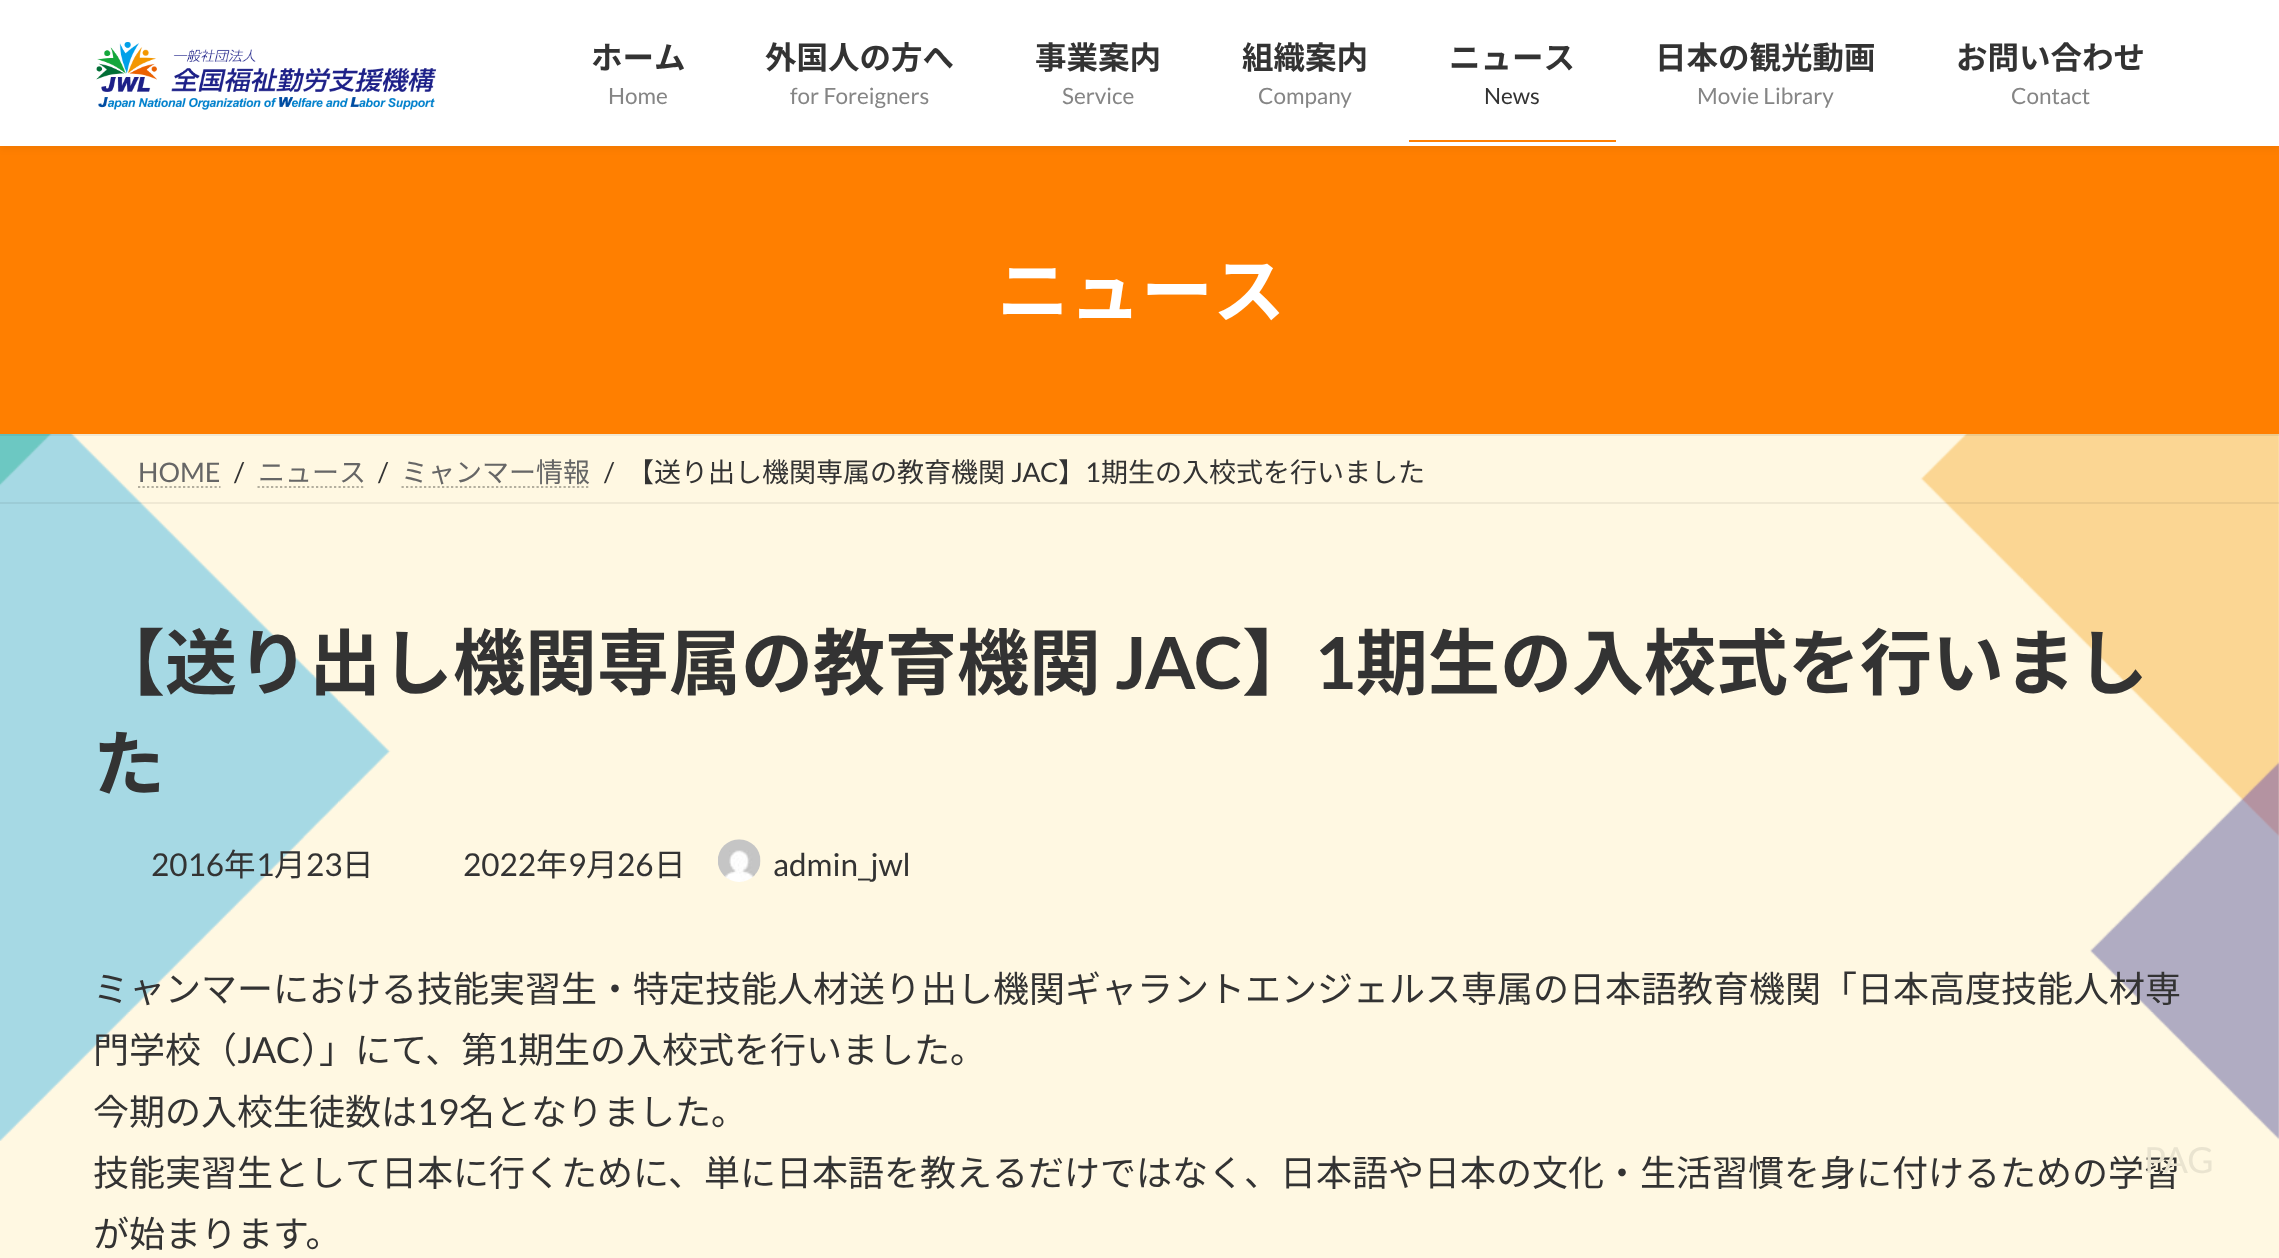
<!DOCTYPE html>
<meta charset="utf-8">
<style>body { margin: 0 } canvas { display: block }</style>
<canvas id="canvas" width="2279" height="1258"></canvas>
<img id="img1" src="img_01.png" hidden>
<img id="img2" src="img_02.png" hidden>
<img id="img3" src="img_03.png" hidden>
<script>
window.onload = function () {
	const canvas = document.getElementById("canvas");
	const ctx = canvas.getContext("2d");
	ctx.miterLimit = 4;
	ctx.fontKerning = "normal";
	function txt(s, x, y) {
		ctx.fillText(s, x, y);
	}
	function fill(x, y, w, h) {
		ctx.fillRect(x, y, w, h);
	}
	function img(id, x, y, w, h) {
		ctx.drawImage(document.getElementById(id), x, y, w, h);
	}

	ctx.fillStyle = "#FFF8E2";
	fill(0, 0, 2279, 1258);
	img("img1", 0, 434, 2279, 707);
	ctx.fillStyle = "#FF7F00";
	fill(0, 146, 2279, 288);
	ctx.fillStyle = "rgba(0, 0, 0, 0.05)";
	ctx.filter = "blur(3.5px)";
	ctx.beginPath();
	ctx.rect(0, 2, 2279, 147);
	ctx.fill();
	ctx.filter = "none";
	ctx.fillStyle = "#FFFFFF";
	fill(0, 0, 2279, 146);
	img("img2", 96, 42, 341, 68);
	ctx.fillStyle = "#FF7F00";
	fill(1409, 140, 207, 2);
	ctx.fillStyle = "rgba(0, 0, 0, 0.06)";
	fill(0, 434, 2279, 2);
	fill(0, 502, 2279, 2);
	ctx.beginPath();
	ctx.moveTo(138, 487);
	ctx.lineTo(220.5, 487);
	ctx.strokeStyle = "#B3AE9E";
	ctx.lineWidth = 2.2;
	ctx.setLineDash([2.25, 2.25]);
	ctx.stroke();
	ctx.beginPath();
	ctx.moveTo(257.5, 487);
	ctx.lineTo(364, 487);
	ctx.stroke();
	ctx.beginPath();
	ctx.moveTo(401.5, 487);
	ctx.lineTo(590.5, 487);
	ctx.stroke();
	img("img3", 718, 839, 43, 43);
	ctx.font = "bold 31.5px Noto Sans JP";
	ctx.fillStyle = "#333333";
	txt("ホーム", 591, 69);
	ctx.font = "22.5px Lato";
	ctx.fillStyle = "#858585";
	txt("Home", 608, 104);
	ctx.font = "bold 31.5px Noto Sans JP";
	ctx.fillStyle = "#333333";
	txt("外国人の方へ", 765, 69);
	ctx.font = "22.5px Lato";
	ctx.fillStyle = "#858585";
	txt("for Foreigners", 790, 104);
	ctx.font = "bold 31.5px Noto Sans JP";
	ctx.fillStyle = "#333333";
	txt("事業案内", 1035, 69);
	ctx.font = "22.5px Lato";
	ctx.fillStyle = "#858585";
	txt("Service", 1062, 104);
	ctx.font = "bold 31.5px Noto Sans JP";
	ctx.fillStyle = "#333333";
	txt("組織案内", 1242, 69);
	ctx.font = "22.5px Lato";
	ctx.fillStyle = "#858585";
	txt("Company", 1258, 104);
	ctx.font = "bold 31.5px Noto Sans JP";
	ctx.fillStyle = "#333333";
	txt("ニュース", 1449, 69);
	ctx.font = "22.5px Lato";
	txt("News", 1484, 104);
	ctx.font = "bold 31.5px Noto Sans JP";
	txt("日本の観光動画", 1655, 69);
	ctx.font = "22.5px Lato";
	ctx.fillStyle = "#858585";
	txt("Movie Library", 1697, 104);
	ctx.font = "bold 31.5px Noto Sans JP";
	ctx.fillStyle = "#333333";
	txt("お問い合わせ", 1956, 69);
	ctx.font = "22.5px Lato";
	ctx.fillStyle = "#858585";
	txt("Contact", 2011, 104);
	ctx.font = "bold 72px Noto Sans JP";
	ctx.fillStyle = "#FFFFFF";
	txt("ニュース", 997, 317);
	ctx.font = "27px Lato";
	ctx.fillStyle = "#666666";
	txt("HOME", 138, 482);
	ctx.fillStyle = "#333333";
	txt("/", 234, 482);
	ctx.font = "27px Noto Sans JP";
	ctx.fillStyle = "#666666";
	txt("ニュース", 258, 482);
	ctx.font = "27px Lato";
	ctx.fillStyle = "#333333";
	txt("/", 378, 482);
	ctx.font = "27px Noto Sans JP";
	ctx.fillStyle = "#666666";
	txt("ミャンマー情報", 401, 482);
	ctx.font = "27px Lato";
	ctx.fillStyle = "#333333";
	txt("/", 604, 482);
	ctx.font = "27px Noto Sans JP";
	txt("【送り出し機関専属の教育機関", 627, 482);
	ctx.font = "27px Lato";
	txt("JAC", 1011, 482);
	ctx.font = "27px Noto Sans JP";
	txt("】", 1058, 482);
	ctx.font = "27px Lato";
	txt("1", 1085, 482);
	ctx.font = "27px Noto Sans JP";
	txt("期生の入校式を行いました", 1101, 482);
	ctx.font = "bold 72px Noto Sans JP";
	txt("【送り出し機関専属の教育機関", 93, 689);
	ctx.font = "bold 72px Lato";
	txt("JAC", 1115, 689);
	ctx.font = "bold 72px Noto Sans JP";
	txt("】", 1242, 689);
	ctx.font = "bold 72px Lato";
	txt("1", 1314, 689);
	ctx.font = "bold 72px Noto Sans JP";
	txt("期生の入校式を行いまし", 1356, 689);
	txt("た", 93, 790);
	ctx.font = "31.5px Lato";
	txt("2016", 151, 876);
	ctx.font = "31.5px Noto Sans JP";
	txt("年", 224, 876);
	ctx.font = "31.5px Lato";
	txt("1", 256, 876);
	ctx.font = "31.5px Noto Sans JP";
	txt("月", 274, 876);
	ctx.font = "31.5px Lato";
	txt("23", 306, 876);
	ctx.font = "31.5px Noto Sans JP";
	txt("日", 342, 876);
	ctx.font = "31.5px Lato";
	txt("2022", 463, 876);
	ctx.font = "31.5px Noto Sans JP";
	txt("年", 536, 876);
	ctx.font = "31.5px Lato";
	txt("9", 568, 876);
	ctx.font = "31.5px Noto Sans JP";
	txt("月", 586, 876);
	ctx.font = "31.5px Lato";
	txt("26", 617, 876);
	ctx.font = "31.5px Noto Sans JP";
	txt("日", 654, 876);
	ctx.font = "31.5px Lato";
	txt("admin_jwl", 773, 876);
	ctx.font = "36px Noto Sans JP";
	txt("ミャンマーにおける技能実習生・特定技能人材送り出し機関ギャラントエンジェルス専属の日本語教育機関「日本高度技能人材専", 93, 1002);
	txt("門学校（", 93, 1063);
	ctx.font = "36px Lato";
	txt("JAC", 237, 1063);
	ctx.font = "36px Noto Sans JP";
	txt("）」にて、第", 301, 1063);
	ctx.font = "36px Lato";
	txt("1", 497, 1063);
	ctx.font = "36px Noto Sans JP";
	txt("期生の入校式を行いました。", 518, 1063);
	txt("今期の入校生徒数は", 93, 1125);
	ctx.font = "36px Lato";
	txt("19", 417, 1125);
	ctx.font = "36px Noto Sans JP";
	txt("名となりました。", 459, 1125);
	txt("技能実習生として日本に行くために、単に日本語を教えるだけではなく、日本語や日本の文化・生活習慣を身に付けるための学習", 93, 1186);
	txt("が始まります。", 93, 1247);
	ctx.font = "36px Lato";
	ctx.fillStyle = "#EAE4D0";
	txt("PAG", 2144, 1173);
};
</script>
